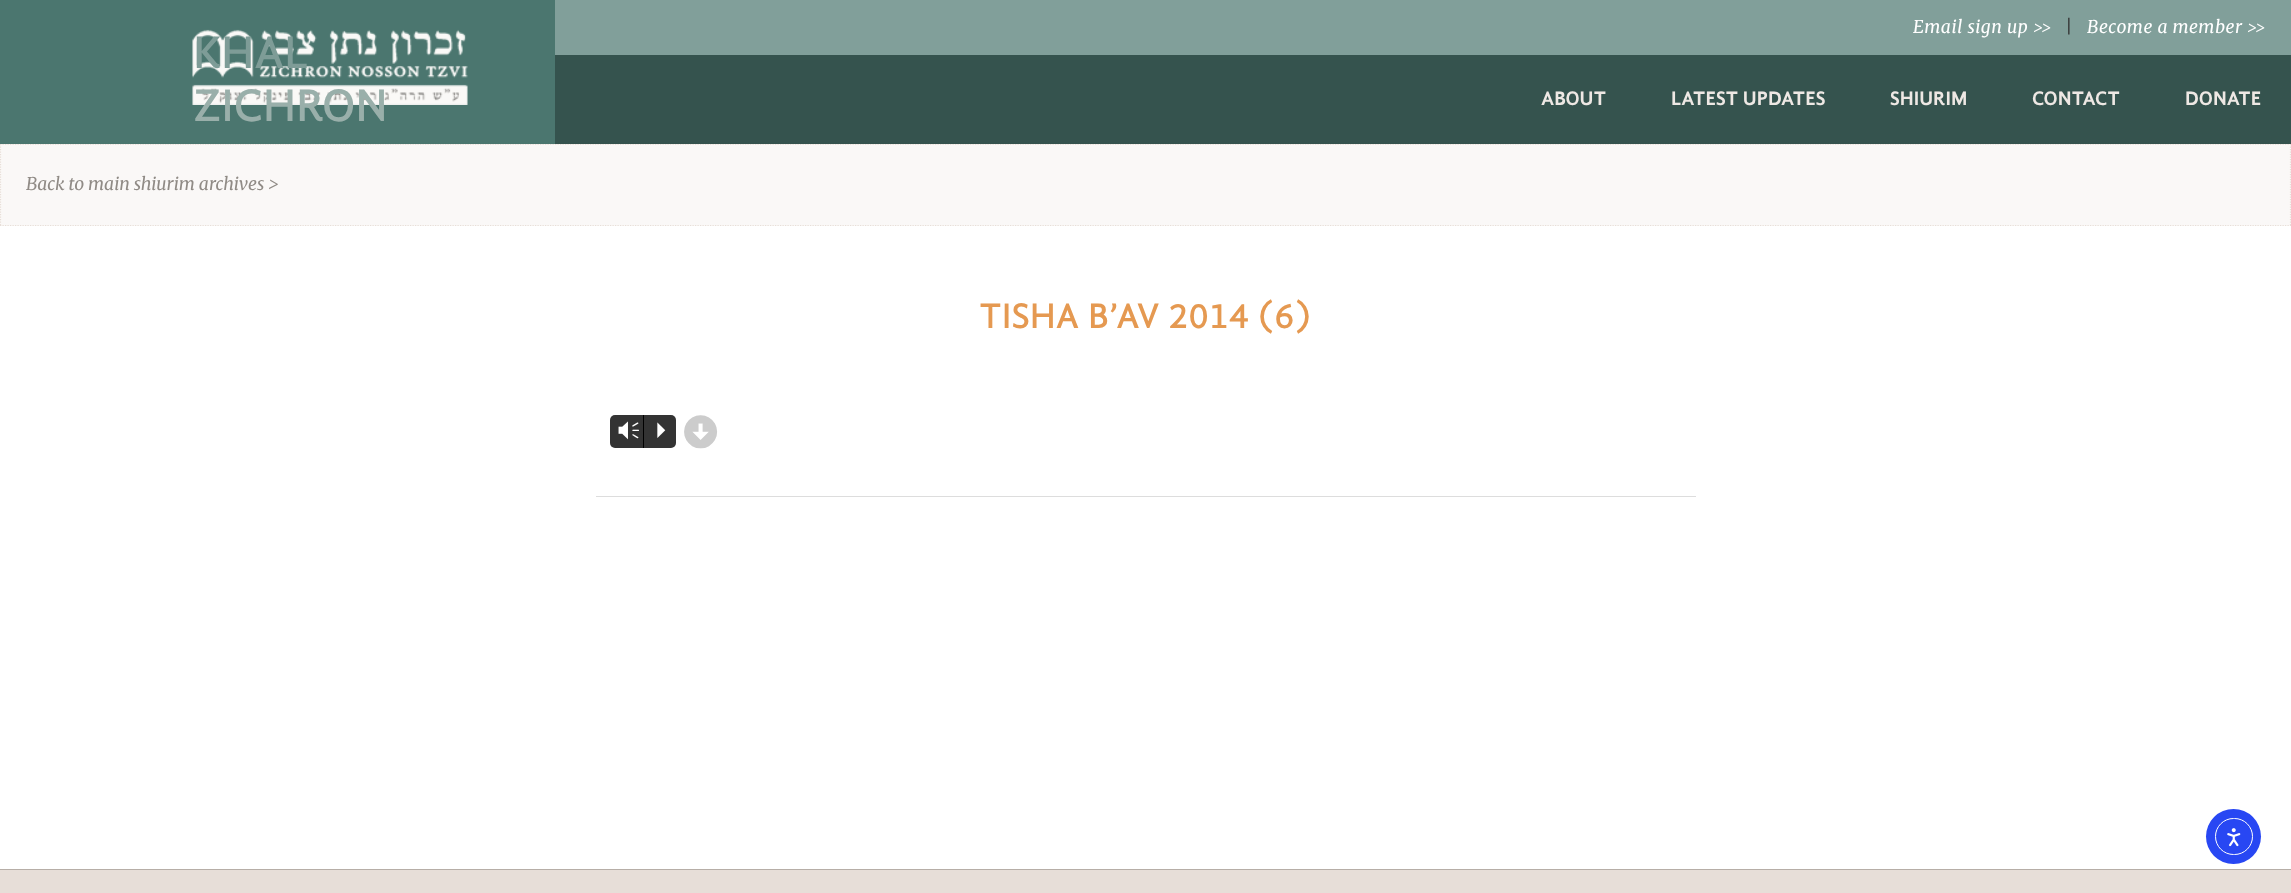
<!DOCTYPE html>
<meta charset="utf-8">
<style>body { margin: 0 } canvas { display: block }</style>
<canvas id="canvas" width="2291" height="893"></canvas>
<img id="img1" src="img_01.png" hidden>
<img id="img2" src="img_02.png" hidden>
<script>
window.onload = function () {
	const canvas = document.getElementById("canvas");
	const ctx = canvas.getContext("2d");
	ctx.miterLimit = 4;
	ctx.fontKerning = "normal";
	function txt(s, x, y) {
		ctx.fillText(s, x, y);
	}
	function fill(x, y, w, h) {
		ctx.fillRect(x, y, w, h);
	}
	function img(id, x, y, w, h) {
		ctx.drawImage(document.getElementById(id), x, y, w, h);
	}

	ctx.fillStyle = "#FFFFFF";
	fill(0, 0, 2291, 893);
	ctx.fillStyle = "#819F9A";
	fill(555, 0, 1736, 55);
	ctx.fillStyle = "#35534E";
	fill(555, 55, 1736, 89);
	ctx.fillStyle = "#FAF8F7";
	fill(0, 144, 2291, 82);
	ctx.beginPath();
	ctx.moveTo(0, 144.5);
	ctx.lineTo(2291, 144.5);
	ctx.strokeStyle = "#E7DED8";
	ctx.lineWidth = 1.2;
	ctx.setLineDash([1.25, 1.25]);
	ctx.stroke();
	ctx.fillStyle = "#4B766F";
	fill(0, 0, 555, 144);
	img("img1", 192, 29, 276, 76);
	ctx.beginPath();
	ctx.moveTo(2290.5, 144);
	ctx.lineTo(2290.5, 226);
	ctx.stroke();
	ctx.beginPath();
	ctx.moveTo(0, 225.5);
	ctx.lineTo(2291, 225.5);
	ctx.stroke();
	ctx.beginPath();
	ctx.moveTo(0.5, 144);
	ctx.lineTo(0.5, 226);
	ctx.stroke();
	ctx.fillStyle = "#DDDDDD";
	fill(596, 496, 1100, 1);
	ctx.fillStyle = "#333333";
	ctx.beginPath();
	ctx.roundRect(610, 415, 33, 33, [5, 0, 0, 5]);
	ctx.fill();
	ctx.beginPath();
	ctx.roundRect(643, 415, 33, 33, [0, 5, 5, 0]);
	ctx.fill();
	ctx.fillStyle = "#000000";
	fill(643, 415, 1, 33);
	ctx.fillStyle = "#E7DED8";
	fill(0, 870, 2291, 23);
	ctx.fillStyle = "#B7AEA7";
	fill(0, 869, 2291, 1);
	ctx.fillStyle = "#2847F3";
	ctx.beginPath();
	ctx.arc(2233.5, 836.5, 27.5, 0, Math.PI * 2);
	ctx.fill();
	ctx.beginPath();
	ctx.roundRect(2215.5, 818.5, 37, 36, 18);
	ctx.strokeStyle = "#FFFFFF";
	ctx.lineWidth = 1;
	ctx.setLineDash([]);
	ctx.stroke();
	img("img2", 2227, 828, 14, 19);
	ctx.letterSpacing = "0.6px";
	ctx.font = "italic 300 17.5px Merriweather";
	ctx.fillStyle = "#FFFFFF";
	txt("Email sign up", 1913, 33);
	ctx.font = "italic 300 16px Merriweather";
	txt(">>", 2033, 33);
	ctx.font = "italic 300 17.5px Merriweather";
	ctx.fillStyle = "#333333";
	txt("|", 2065, 33);
	ctx.fillStyle = "#FFFFFF";
	txt("Become a member", 2087, 33);
	ctx.font = "italic 300 16px Merriweather";
	txt(">>", 2247, 33);
	ctx.letterSpacing = "0.9px";
	ctx.font = "bold 45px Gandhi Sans";
	ctx.fillStyle = "#7E9C97";
	txt("KHAL", 193, 68);
	ctx.fillStyle = "#99AFAA";
	txt("ZICHRON", 193, 121);
	ctx.letterSpacing = "0px";
	ctx.font = "bold 20px 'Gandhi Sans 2'";
	ctx.fillStyle = "#EEE8E4";
	txt("ABOUT", 1541, 105);
	txt("LATEST UPDATES", 1671, 105);
	txt("SHIURIM", 1890, 105);
	txt("CONTACT", 2032, 105);
	txt("DONATE", 2185, 105);
	ctx.font = "italic 300 17.5px Merriweather";
	ctx.fillStyle = "#908B86";
	txt("Back to main shiurim archives >", 26, 190);
	ctx.letterSpacing = "0.9px";
	ctx.font = "bold 35px Gandhi Sans";
	ctx.fillStyle = "#E59951";
	txt("TISHA B’AV 2014 (6)", 979, 328);
	ctx.letterSpacing = "0px";
	ctx.font = "25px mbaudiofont";
	ctx.fillStyle = "#FFFFFF";
	txt("Vm", 617, 438);
	txt("P", 648, 438);
	ctx.font = "62px mbaudiofont";
	ctx.fillStyle = "#CCCCCC";
	txt("d", 684, 450);
};
</script>
